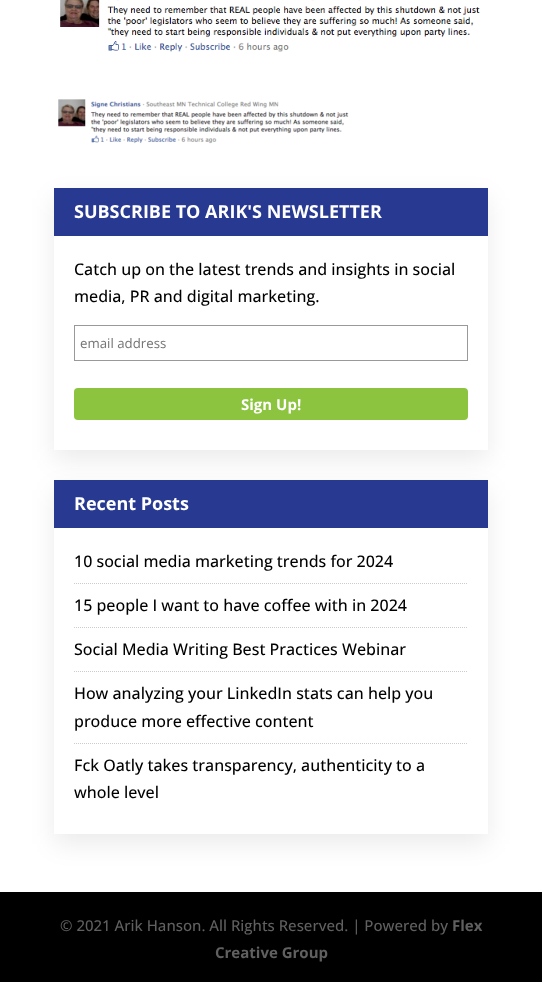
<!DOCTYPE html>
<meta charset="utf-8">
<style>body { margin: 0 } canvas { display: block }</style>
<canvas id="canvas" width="542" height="982"></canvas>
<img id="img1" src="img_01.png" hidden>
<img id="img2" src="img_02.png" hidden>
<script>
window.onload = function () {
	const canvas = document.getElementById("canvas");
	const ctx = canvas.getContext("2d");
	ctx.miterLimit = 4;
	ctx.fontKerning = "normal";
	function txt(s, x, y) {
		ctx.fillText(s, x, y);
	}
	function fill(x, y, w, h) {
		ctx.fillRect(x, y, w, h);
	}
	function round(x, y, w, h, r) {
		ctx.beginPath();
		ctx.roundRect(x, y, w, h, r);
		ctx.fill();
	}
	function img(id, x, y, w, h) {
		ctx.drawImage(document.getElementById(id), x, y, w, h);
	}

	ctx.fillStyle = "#FFFFFF";
	fill(0, 0, 542, 982);
	img("img1", 60, 0, 420, 52);
	img("img2", 58, 99, 291, 45);
	ctx.save();
	ctx.beginPath();
	ctx.moveTo(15, 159);
	ctx.lineTo(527, 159);
	ctx.lineTo(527, 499);
	ctx.lineTo(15, 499);
	ctx.closePath();
	ctx.moveTo(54, 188);
	ctx.lineTo(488, 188);
	ctx.lineTo(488, 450);
	ctx.lineTo(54, 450);
	ctx.closePath();
	ctx.clip("evenodd");
	ctx.fillStyle = "rgba(0, 0, 0, 0.08)";
	ctx.filter = "blur(12.5px)";
	ctx.beginPath();
	ctx.rect(54, 198, 434, 262);
	ctx.fill();
	ctx.filter = "none";
	ctx.restore();
	ctx.fillStyle = "#273991";
	fill(54, 188, 434, 48);
	ctx.strokeStyle = "#999999";
	ctx.strokeRect(74.5, 325.5, 393, 35);
	ctx.fillStyle = "#8CC440";
	round(74, 388, 394, 32, 4);
	ctx.save();
	ctx.beginPath();
	ctx.moveTo(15, 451);
	ctx.lineTo(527, 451);
	ctx.lineTo(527, 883);
	ctx.lineTo(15, 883);
	ctx.closePath();
	ctx.moveTo(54, 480);
	ctx.lineTo(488, 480);
	ctx.lineTo(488, 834);
	ctx.lineTo(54, 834);
	ctx.closePath();
	ctx.clip("evenodd");
	ctx.fillStyle = "rgba(0, 0, 0, 0.08)";
	ctx.filter = "blur(12.5px)";
	ctx.beginPath();
	ctx.rect(54, 490, 434, 354);
	ctx.fill();
	ctx.filter = "none";
	ctx.restore();
	ctx.fillStyle = "#273991";
	fill(54, 480, 434, 48);
	ctx.beginPath();
	ctx.moveTo(74, 583.5);
	ctx.lineTo(468, 583.5);
	ctx.strokeStyle = "#CCCCCC";
	ctx.setLineDash([1, 1]);
	ctx.stroke();
	ctx.beginPath();
	ctx.moveTo(74, 627.5);
	ctx.lineTo(468, 627.5);
	ctx.stroke();
	ctx.beginPath();
	ctx.moveTo(74, 671.5);
	ctx.lineTo(468, 671.5);
	ctx.stroke();
	ctx.beginPath();
	ctx.moveTo(74, 743.5);
	ctx.lineTo(468, 743.5);
	ctx.stroke();
	ctx.fillStyle = "#000000";
	fill(0, 892, 542, 90);
	ctx.font = "bold 18px Open Sans";
	ctx.fillStyle = "#FFFFFF";
	txt("SUBSCRIBE TO ARIK'S NEWSLETTER", 74, 218);
	ctx.font = "500 16px Open Sans";
	ctx.fillStyle = "#000000";
	txt("Catch up on the latest trends and insights in social", 74, 275);
	txt("media, PR and digital marketing.", 74, 302);
	ctx.font = "13.25px Open Sans";
	ctx.fillStyle = "#757575";
	txt("email address", 80, 348);
	ctx.font = "bold 15px Open Sans";
	ctx.fillStyle = "#FFFFFF";
	txt("Sign Up!", 241, 410);
	ctx.font = "bold 18px Open Sans";
	txt("Recent Posts", 74, 510);
	ctx.font = "500 16px Open Sans";
	ctx.fillStyle = "#000000";
	txt("10 social media marketing trends for 2024", 74, 567);
	txt("15 people I want to have coffee with in 2024", 74, 611);
	txt("Social Media Writing Best Practices Webinar", 74, 655);
	txt("How analyzing your LinkedIn stats can help you", 74, 699);
	txt("produce more effective content", 74, 727);
	txt("Fck Oatly takes transparency, authenticity to a", 74, 771);
	txt("whole level", 74, 798);
	ctx.font = "500 15px Open Sans";
	ctx.fillStyle = "#606060";
	txt("© 2021 Arik Hanson. All Rights Reserved. | Powered by", 60, 931);
	ctx.font = "bold 15px Open Sans";
	txt("Flex", 452, 931);
	txt("Creative Group", 215, 958);
};
</script>
